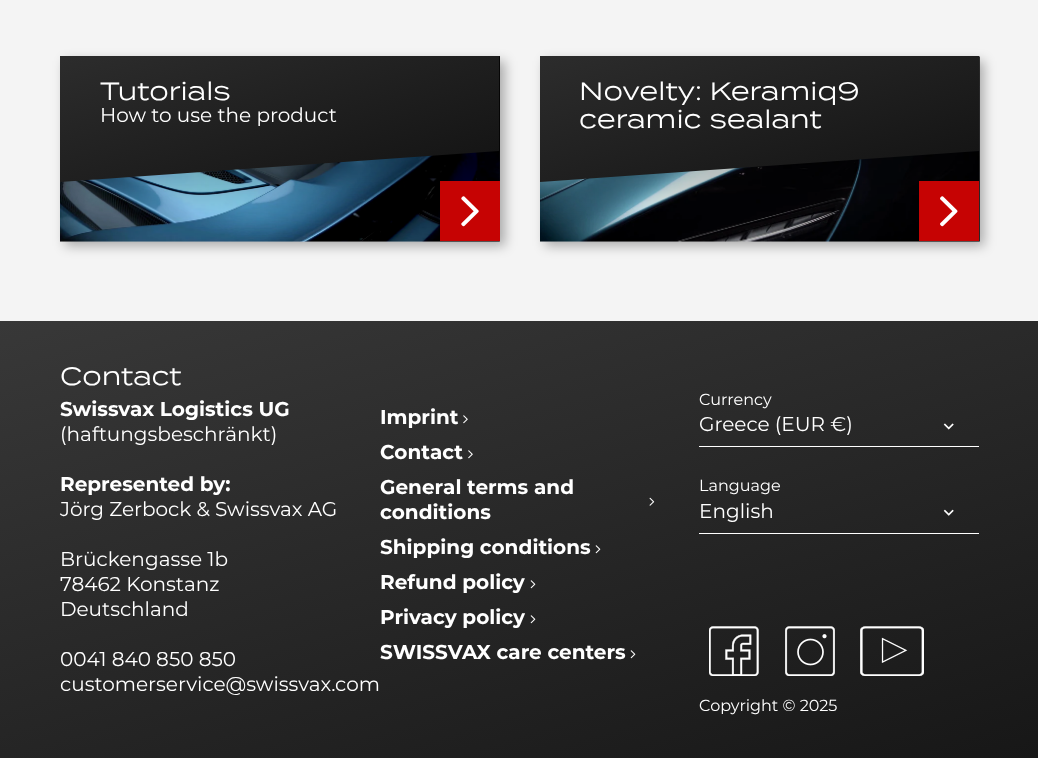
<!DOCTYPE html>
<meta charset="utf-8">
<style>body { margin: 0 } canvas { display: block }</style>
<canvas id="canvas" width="1038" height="758"></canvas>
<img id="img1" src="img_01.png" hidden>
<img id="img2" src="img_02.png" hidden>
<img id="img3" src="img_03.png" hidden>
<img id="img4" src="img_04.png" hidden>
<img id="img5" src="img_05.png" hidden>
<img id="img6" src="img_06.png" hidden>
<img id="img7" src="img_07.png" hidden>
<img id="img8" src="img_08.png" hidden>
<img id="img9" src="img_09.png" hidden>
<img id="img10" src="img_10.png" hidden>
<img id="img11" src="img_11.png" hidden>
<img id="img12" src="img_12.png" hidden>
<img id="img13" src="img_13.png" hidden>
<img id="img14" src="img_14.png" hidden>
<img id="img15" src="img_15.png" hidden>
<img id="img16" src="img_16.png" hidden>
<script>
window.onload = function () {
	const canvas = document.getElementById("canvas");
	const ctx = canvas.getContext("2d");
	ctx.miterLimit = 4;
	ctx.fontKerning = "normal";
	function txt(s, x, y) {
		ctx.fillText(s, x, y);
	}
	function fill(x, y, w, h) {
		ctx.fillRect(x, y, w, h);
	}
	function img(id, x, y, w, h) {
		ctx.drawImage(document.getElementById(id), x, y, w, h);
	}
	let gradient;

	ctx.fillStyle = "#F4F4F4";
	fill(0, 0, 1038, 758);
	ctx.fillStyle = "rgba(0, 0, 0, 0.3)";
	ctx.filter = "blur(6px)";
	ctx.beginPath();
	ctx.rect(65, 61, 440, 185);
	ctx.fill();
	ctx.filter = "none";
	ctx.fillStyle = "#212121";
	fill(60, 56, 440, 185);
	img("img1", 60, 56, 440, 186);
	ctx.save();
	ctx.beginPath();
	ctx.rect(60, 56, 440, 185);
	ctx.clip();
	ctx.fillStyle = "rgba(0, 0, 0, 0.3)";
	ctx.filter = "blur(31px)";
	ctx.beginPath();
	ctx.rect(60, 38, 440, 160);
	ctx.fill();
	ctx.filter = "none";
	ctx.restore();
	ctx.save();
	ctx.beginPath();
	ctx.rect(60, 56, 440, 185);
	ctx.clip();
	gradient = ctx.createLinearGradient(239, -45, 321, 218);
	gradient.addColorStop(0, "#313131");
	gradient.addColorStop(1, "#141414");
	ctx.fillStyle = gradient;
	ctx.beginPath();
	ctx.moveTo(60, 22);
	ctx.lineTo(499, -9);
	ctx.lineTo(499, 151);
	ctx.lineTo(60, 182);
	ctx.closePath();
	ctx.fill();
	ctx.restore();
	ctx.fillStyle = "#C60303";
	fill(440, 181, 60, 60);
	img("img2", 461, 196, 18, 31);
	ctx.fillStyle = "rgba(0, 0, 0, 0.3)";
	ctx.filter = "blur(6px)";
	ctx.beginPath();
	ctx.rect(545, 61, 439, 185);
	ctx.fill();
	ctx.filter = "none";
	img("img3", 540, 56, 440, 186);
	ctx.save();
	ctx.beginPath();
	ctx.rect(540, 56, 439, 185);
	ctx.clip();
	ctx.filter = "blur(31px)";
	ctx.beginPath();
	ctx.rect(540, 38, 439, 160);
	ctx.fill();
	ctx.filter = "none";
	ctx.restore();
	ctx.save();
	ctx.beginPath();
	ctx.rect(540, 56, 439, 185);
	ctx.clip();
	gradient = ctx.createLinearGradient(718, -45, 800, 218);
	gradient.addColorStop(0, "#313131");
	gradient.addColorStop(1, "#141414");
	ctx.fillStyle = gradient;
	ctx.beginPath();
	ctx.moveTo(539, 22);
	ctx.lineTo(979, -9);
	ctx.lineTo(979, 151);
	ctx.lineTo(539, 182);
	ctx.closePath();
	ctx.fill();
	ctx.restore();
	ctx.fillStyle = "#C60303";
	fill(919, 181, 60, 60);
	img("img4", 940, 196, 18, 31);
	gradient = ctx.createLinearGradient(414, 195, 625, 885);
	gradient.addColorStop(0, "#383838");
	gradient.addColorStop(1, "#171717");
	ctx.fillStyle = gradient;
	fill(0, 321, 1038, 437);
	img("img5", 463, 415, 5, 9);
	img("img6", 468, 450, 5, 9);
	img("img7", 649, 497, 6, 9);
	img("img8", 595, 545, 6, 9);
	img("img9", 530, 580, 6, 9);
	img("img10", 530, 615, 6, 9);
	img("img11", 630, 650, 6, 9);
	img("img12", 943, 423, 11, 7);
	ctx.fillStyle = "#FFFFFF";
	fill(699, 446, 280, 1);
	img("img13", 943, 509, 11, 7);
	fill(699, 533, 280, 1);
	img("img14", 709, 626, 50, 50);
	img("img15", 785, 626, 50, 50);
	img("img16", 860, 626, 64, 50);
	ctx.font = "25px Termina";
	txt("Tutorials", 100, 100);
	ctx.font = "20px Montserrat";
	txt("How to use the product", 100, 122);
	ctx.font = "25px Termina";
	txt("Novelty: Keramiq9", 579, 100);
	txt("ceramic sealant", 579, 128);
	txt("Contact", 60, 385);
	ctx.font = "bold 20px Montserrat";
	txt("Swissvax Logistics UG", 60, 416);
	ctx.font = "20px Montserrat";
	txt("(haftungsbeschränkt)", 60, 441);
	ctx.font = "bold 20px Montserrat";
	txt("Represented by:", 60, 491);
	ctx.font = "20px Montserrat";
	txt("Jörg Zerbock & Swissvax AG", 60, 516);
	txt("Brückengasse 1b", 60, 566);
	txt("78462 Konstanz", 60, 591);
	txt("Deutschland", 60, 616);
	txt("0041 840 850 850", 60, 666);
	txt("customerservice@swissvax.com", 60, 691);
	ctx.font = "bold 20px Montserrat";
	txt("Imprint", 380, 424);
	txt("Contact", 380, 459);
	txt("General terms and", 380, 494);
	txt("conditions", 380, 519);
	txt("Shipping conditions", 380, 554);
	txt("Refund policy", 380, 589);
	txt("Privacy policy", 380, 624);
	txt("SWISSVAX care centers", 380, 659);
	ctx.font = "16px Montserrat";
	txt("Currency", 699, 405);
	ctx.font = "20px Montserrat";
	txt("Greece (EUR €)", 699, 431);
	ctx.font = "16px Montserrat";
	txt("Language", 699, 491);
	ctx.font = "20px Montserrat";
	txt("English", 699, 518);
	ctx.font = "16px Montserrat";
	txt("Copyright © 2025", 699, 711);
};
</script>
